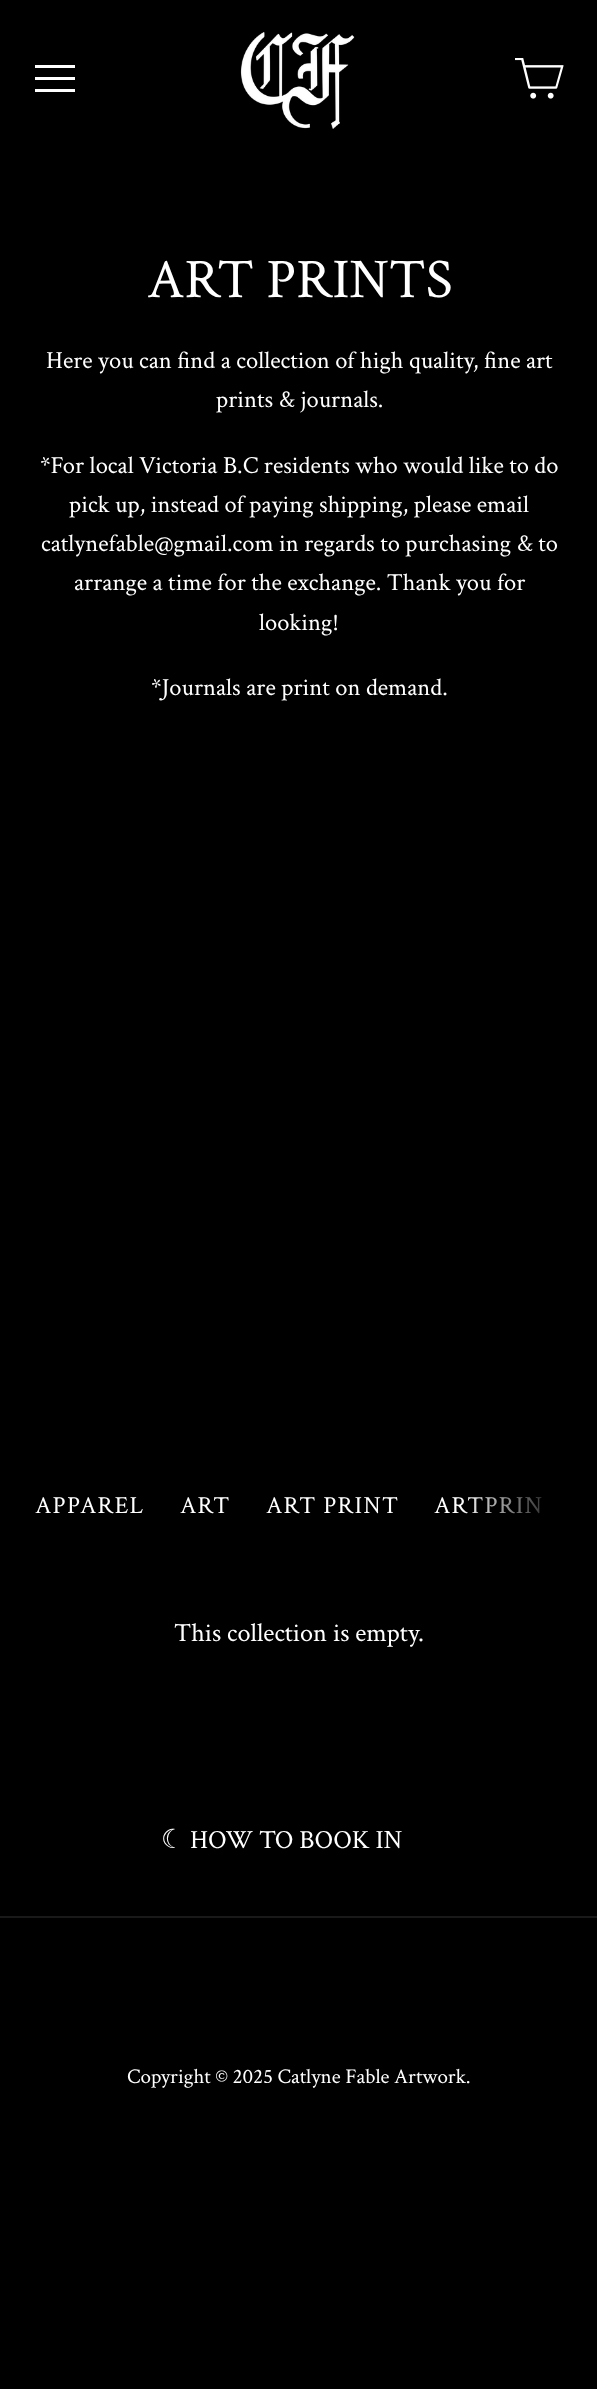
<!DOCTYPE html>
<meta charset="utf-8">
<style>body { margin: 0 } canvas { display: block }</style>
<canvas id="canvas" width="597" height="2389"></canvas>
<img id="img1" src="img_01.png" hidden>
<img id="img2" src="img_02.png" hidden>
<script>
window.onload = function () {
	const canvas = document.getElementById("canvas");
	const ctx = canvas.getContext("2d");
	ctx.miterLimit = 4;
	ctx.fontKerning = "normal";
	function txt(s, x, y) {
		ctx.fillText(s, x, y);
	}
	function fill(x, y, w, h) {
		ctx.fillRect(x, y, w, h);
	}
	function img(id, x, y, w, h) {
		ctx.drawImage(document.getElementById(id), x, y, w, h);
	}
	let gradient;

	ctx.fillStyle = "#000000";
	fill(0, 0, 597, 2389);
	ctx.fillStyle = "#FFFFFF";
	fill(35, 65, 40, 3);
	fill(35, 77, 40, 3);
	fill(35, 89, 40, 3);
	img("img1", 240, 32, 115, 97);
	img("img2", 515, 58, 49, 41);
	ctx.fillStyle = "#191919";
	fill(0, 1916, 597, 2);
	ctx.font = "56px Crimson Text";
	ctx.fillStyle = "#FFFFFF";
	txt("ART PRINTS", 147, 297);
	ctx.font = "24.5px Crimson Text";
	txt("Here you can find a collection of high quality, fine art", 46, 368);
	txt("prints & journals.", 216, 407);
	txt("*For local Victoria B.C residents who would like to do", 40, 473);
	txt("pick up, instead of paying shipping, please email", 69, 512);
	txt("catlynefable@gmail.com in regards to purchasing & to", 41, 551);
	txt("arrange a time for the exchange. Thank you for", 74, 590);
	txt("looking!", 259, 630);
	txt("*Journals are print on demand.", 151, 695);
	ctx.letterSpacing = "1.25px";
	txt("APPAREL", 35, 1513);
	txt("ART", 180, 1513);
	txt("ART PRINT", 266, 1513);
	txt("ARTPRIN", 434, 1513);
	gradient = ctx.createLinearGradient(460, 1488, 565, 1488);
	gradient.addColorStop(0, "rgba(0, 0, 0, 0)");
	gradient.addColorStop(1, "#000000");
	ctx.fillStyle = gradient;
	fill(462, 1497, 80, 17);
	ctx.letterSpacing = "0px";
	ctx.font = "26.25px Crimson Text";
	ctx.fillStyle = "#FFFFFF";
	txt("This collection is empty.", 174, 1641);
	ctx.font = "26.25px DejaVu Sans";
	txt("☾", 161, 1848);
	ctx.font = "26.25px Crimson Text";
	txt("HOW TO BOOK IN", 190, 1848);
	ctx.font = "21px Crimson Text";
	txt("Copyright © 2025 Catlyne Fable Artwork.", 127, 2083);
};
</script>
